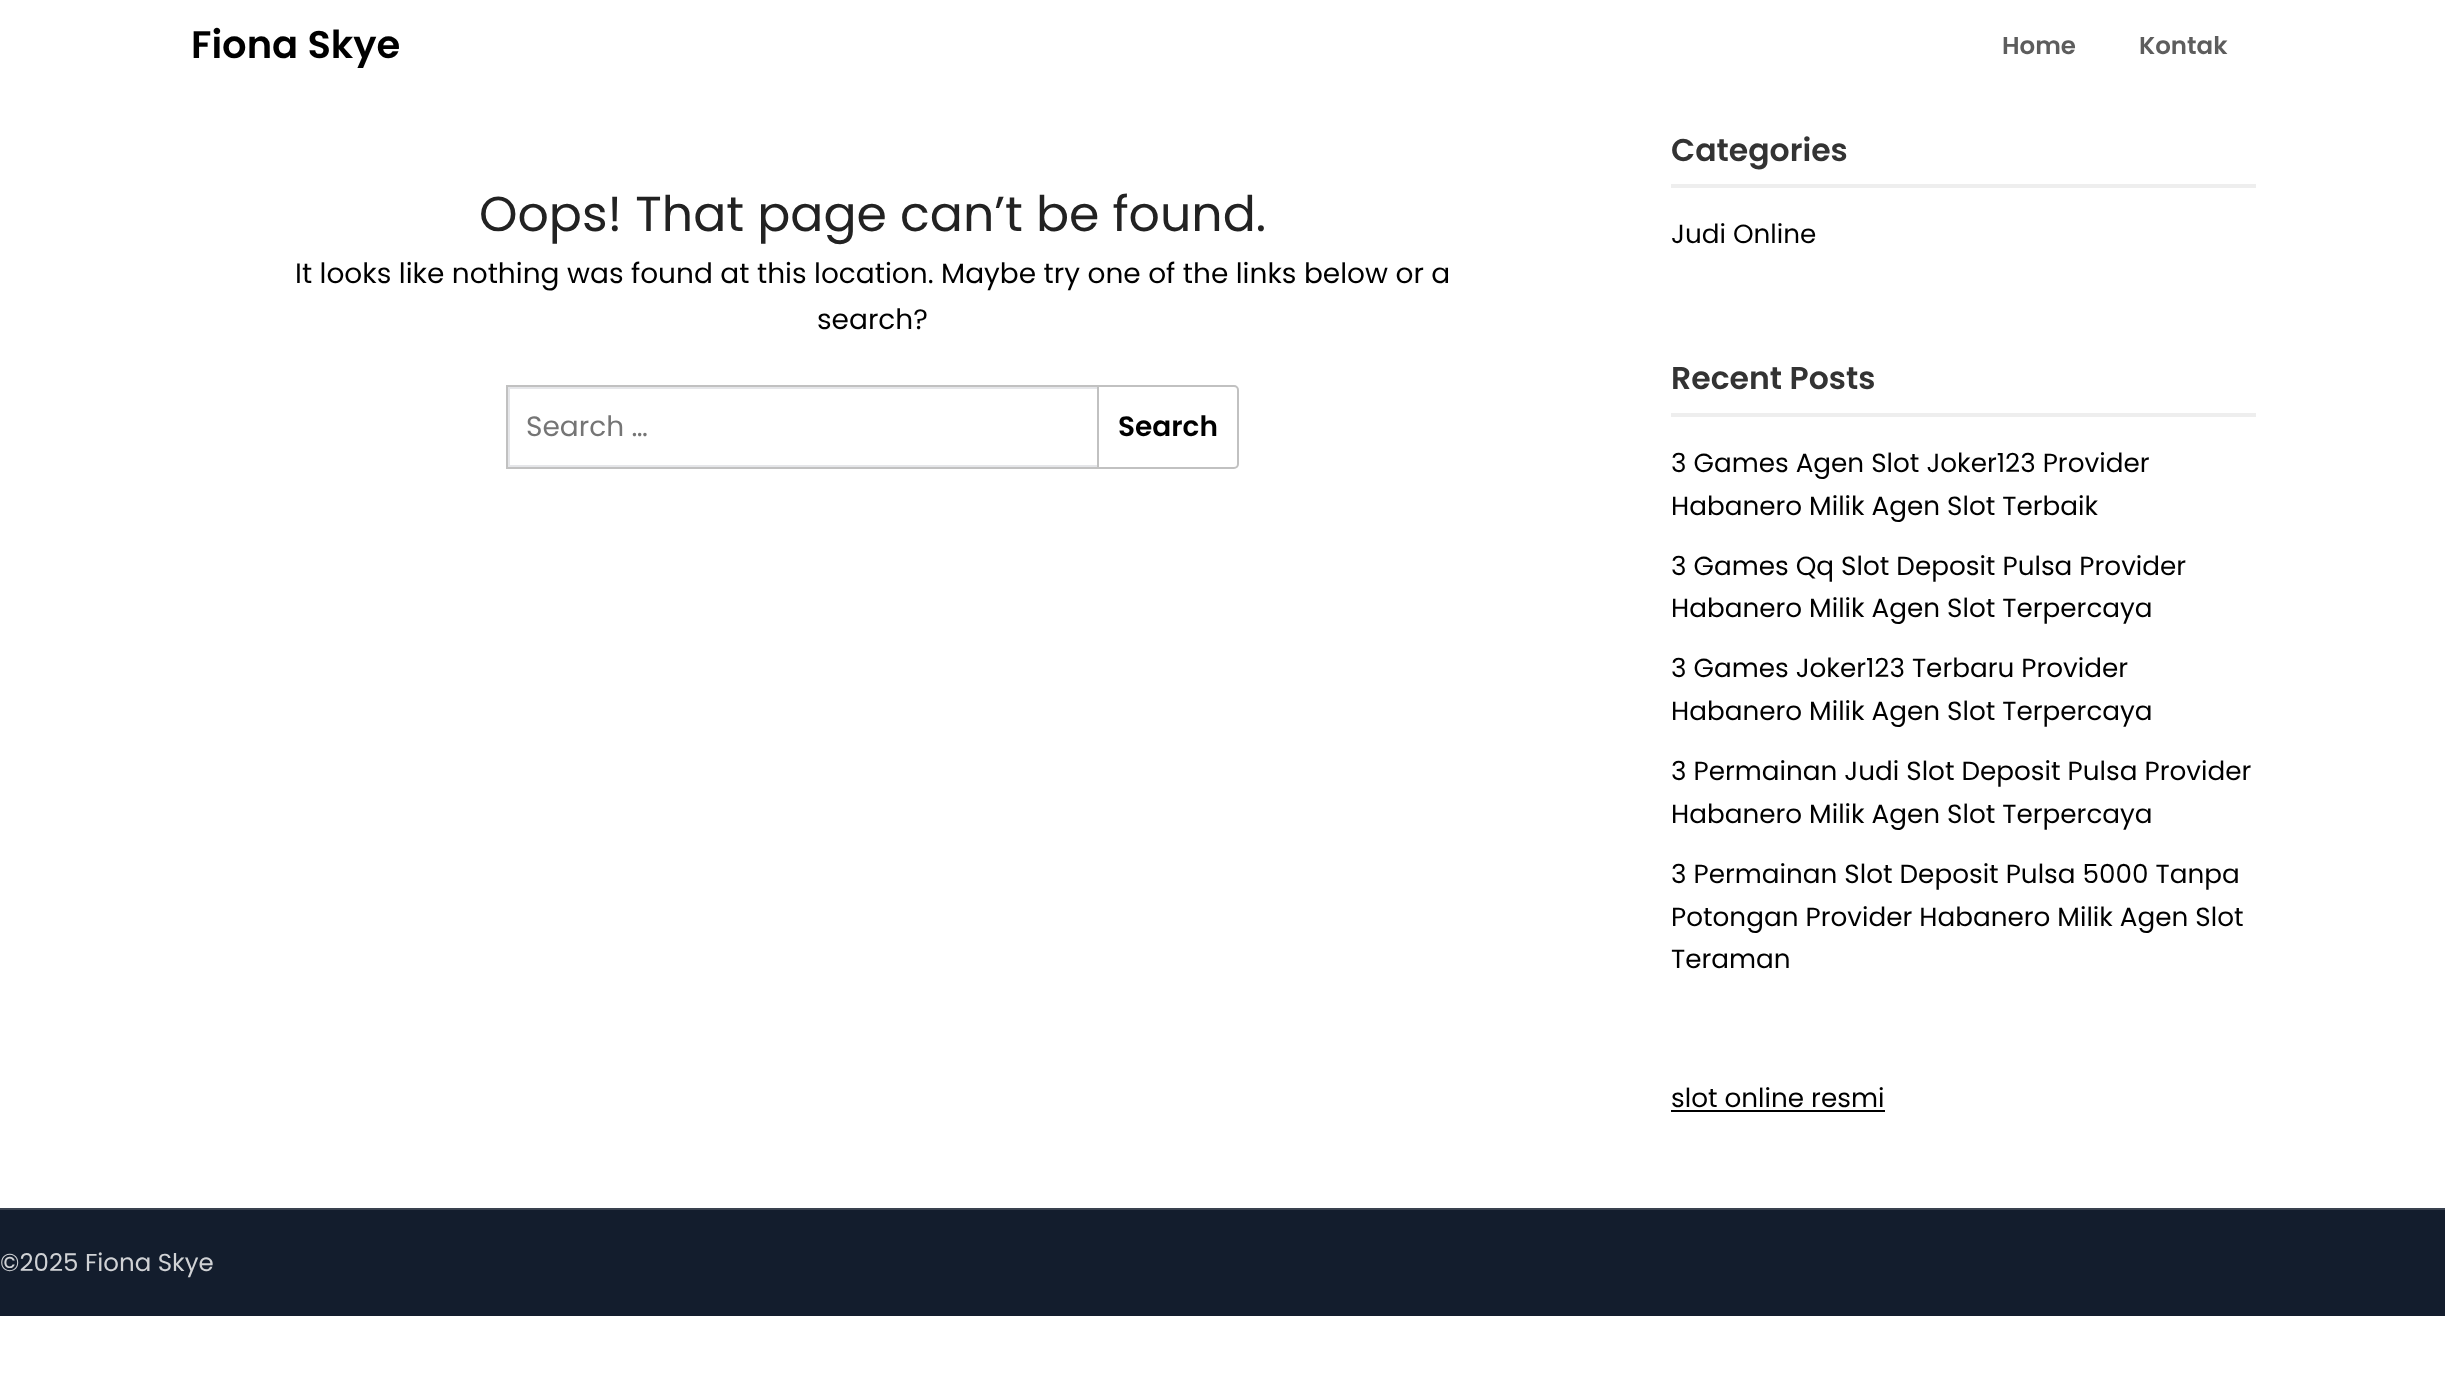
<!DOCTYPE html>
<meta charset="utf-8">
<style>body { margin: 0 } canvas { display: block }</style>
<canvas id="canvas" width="2445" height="1381"></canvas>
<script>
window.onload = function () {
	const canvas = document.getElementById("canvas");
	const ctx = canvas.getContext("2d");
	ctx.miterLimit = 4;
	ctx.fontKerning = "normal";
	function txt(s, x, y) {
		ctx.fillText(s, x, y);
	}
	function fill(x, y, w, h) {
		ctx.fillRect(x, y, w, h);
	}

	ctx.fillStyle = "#FFFFFF";
	fill(0, 0, 2445, 1381);
	ctx.fillStyle = "#C1C1C1";
	fill(506, 385, 593, 2);
	fill(506, 467, 593, 2);
	fill(506, 385, 2, 84);
	ctx.strokeStyle = "#E5E6E9";
	ctx.lineWidth = 2;
	ctx.strokeRect(509, 388, 589, 78);
	ctx.beginPath();
	ctx.roundRect(1098, 386, 140, 82, [0, 4, 4, 0]);
	ctx.strokeStyle = "#C1C1C1";
	ctx.stroke();
	ctx.fillStyle = "#EEEEEE";
	fill(1671, 184, 585, 4);
	fill(1671, 413, 585, 4);
	ctx.fillStyle = "#000000";
	fill(1671, 1110, 214, 2);
	ctx.fillStyle = "#131D2D";
	fill(0, 1210, 2445, 106);
	ctx.fillStyle = "#39414F";
	fill(0, 1208, 2445, 2);
	ctx.font = "600 38.5px Poppins";
	ctx.fillStyle = "#000000";
	txt("Fiona Skye", 191, 58);
	ctx.font = "600 24.5px Poppins";
	ctx.fillStyle = "#5D5D5D";
	txt("Home", 2002, 54);
	txt("Kontak", 2139, 54);
	ctx.font = "49px Poppins";
	ctx.fillStyle = "#222222";
	txt("Oops! That page can’t be found.", 479, 231);
	ctx.font = "28px Poppins";
	ctx.fillStyle = "#000000";
	txt("It looks like nothing was found at this location. Maybe try one of the links below or a", 295, 283);
	txt("search?", 817, 329);
	ctx.fillStyle = "#757575";
	txt("Search …", 526, 436);
	ctx.font = "600 28px Poppins";
	ctx.fillStyle = "#000000";
	txt("Search", 1118, 436);
	ctx.font = "600 31.5px Poppins";
	ctx.fillStyle = "#333333";
	txt("Categories", 1671, 161);
	ctx.font = "26.25px Poppins";
	ctx.fillStyle = "#000000";
	txt("Judi Online", 1671, 243);
	ctx.font = "600 31.5px Poppins";
	ctx.fillStyle = "#333333";
	txt("Recent Posts", 1671, 389);
	ctx.font = "26.25px Poppins";
	ctx.fillStyle = "#000000";
	txt("3 Games Agen Slot Joker123 Provider", 1671, 472);
	txt("Habanero Milik Agen Slot Terbaik", 1671, 515);
	txt("3 Games Qq Slot Deposit Pulsa Provider", 1671, 575);
	txt("Habanero Milik Agen Slot Terpercaya", 1671, 617);
	txt("3 Games Joker123 Terbaru Provider", 1671, 677);
	txt("Habanero Milik Agen Slot Terpercaya", 1671, 720);
	txt("3 Permainan Judi Slot Deposit Pulsa Provider", 1671, 780);
	txt("Habanero Milik Agen Slot Terpercaya", 1671, 823);
	txt("3 Permainan Slot Deposit Pulsa 5000 Tanpa", 1671, 883);
	txt("Potongan Provider Habanero Milik Agen Slot", 1671, 926);
	txt("Teraman", 1671, 968);
	txt("slot online resmi", 1671, 1107);
	ctx.font = "24.5px Poppins";
	ctx.fillStyle = "#D0D2D5";
	txt("©2025 Fiona Skye", 0, 1271);
};
</script>
